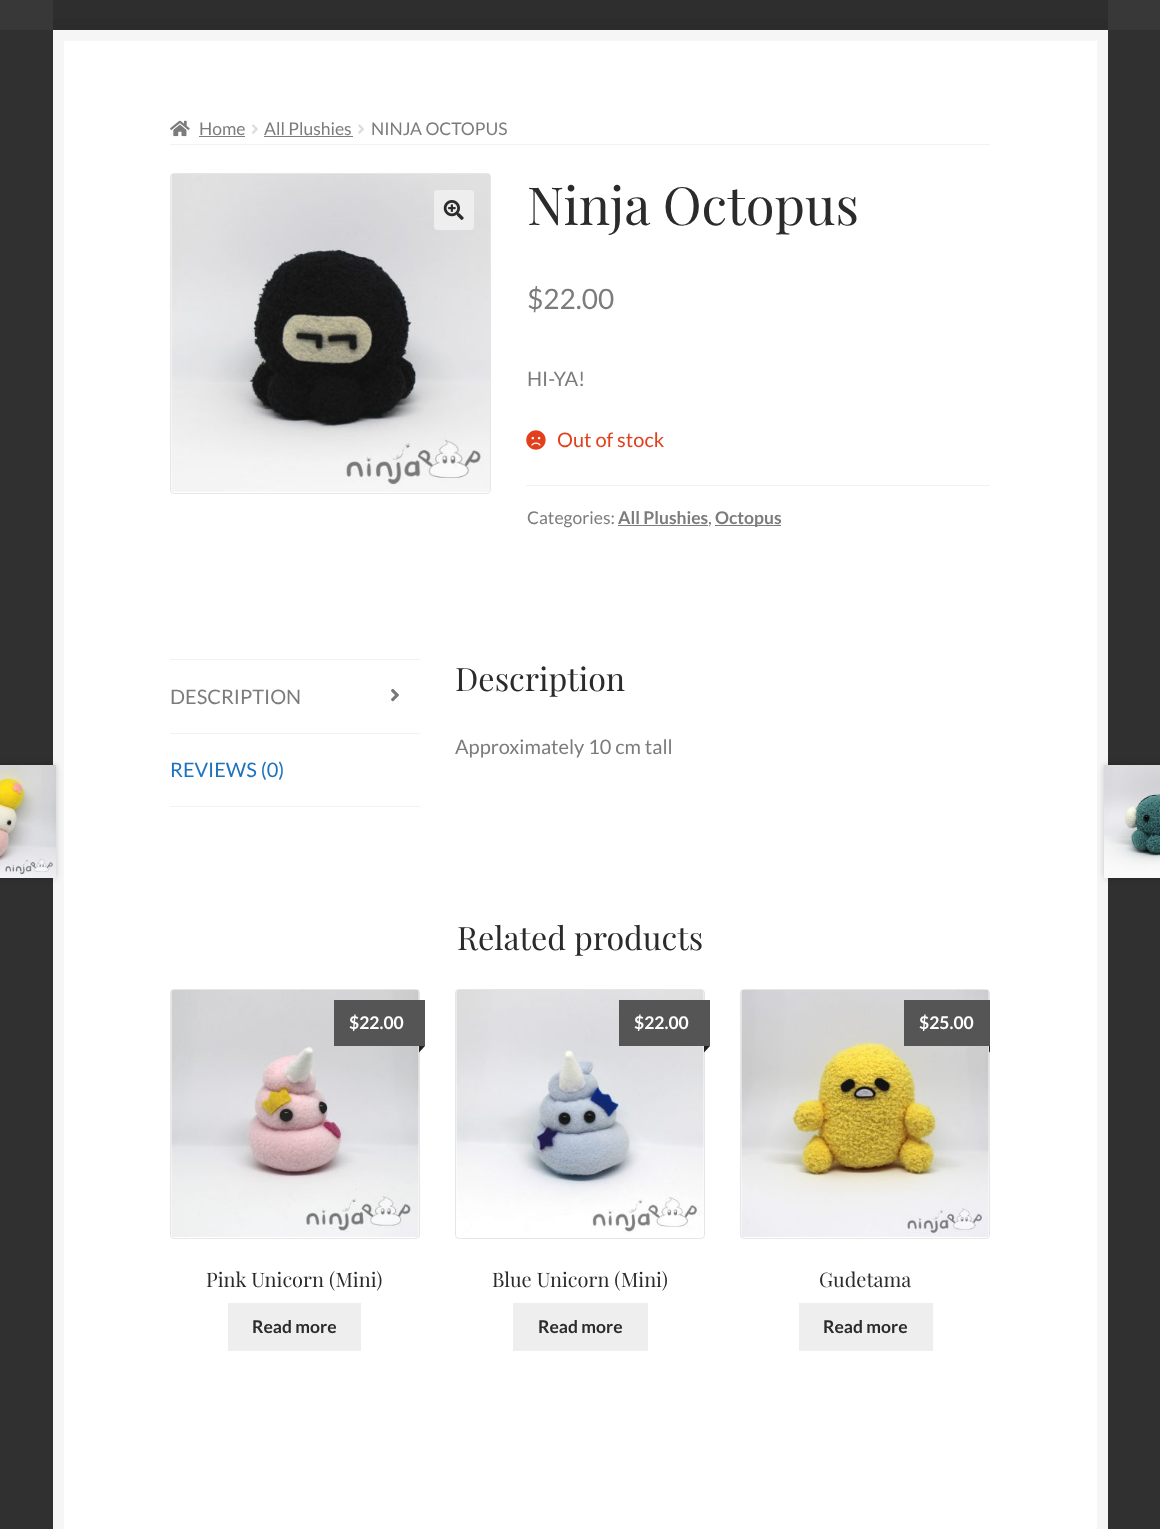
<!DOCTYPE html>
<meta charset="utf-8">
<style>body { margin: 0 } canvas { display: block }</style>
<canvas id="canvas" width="1160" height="1529"></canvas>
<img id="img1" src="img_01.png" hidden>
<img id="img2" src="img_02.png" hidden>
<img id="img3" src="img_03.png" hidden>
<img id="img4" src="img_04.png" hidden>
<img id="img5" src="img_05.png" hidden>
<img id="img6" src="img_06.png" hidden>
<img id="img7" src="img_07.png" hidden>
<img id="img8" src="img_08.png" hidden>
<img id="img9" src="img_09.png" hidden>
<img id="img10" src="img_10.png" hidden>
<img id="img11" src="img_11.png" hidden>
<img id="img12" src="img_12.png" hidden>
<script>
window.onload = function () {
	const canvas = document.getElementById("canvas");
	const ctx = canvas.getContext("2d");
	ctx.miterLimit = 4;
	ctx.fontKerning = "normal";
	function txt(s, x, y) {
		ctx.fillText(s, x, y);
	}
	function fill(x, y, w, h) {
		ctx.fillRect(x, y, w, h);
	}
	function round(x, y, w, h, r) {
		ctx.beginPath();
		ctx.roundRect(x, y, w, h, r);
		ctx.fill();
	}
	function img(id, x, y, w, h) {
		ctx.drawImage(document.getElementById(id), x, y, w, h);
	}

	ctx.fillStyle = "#303030";
	fill(0, 0, 1160, 1529);
	ctx.fillStyle = "#383838";
	fill(0, 0, 1160, 30);
	ctx.fillStyle = "#2E2E2E";
	fill(53, 0, 1055, 19);
	ctx.fillStyle = "#2C2C2C";
	fill(53, 19, 1055, 11);
	ctx.fillStyle = "#FFFFFF";
	ctx.beginPath();
	ctx.rect(58.5, 35.5, 1044, 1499);
	ctx.fill();
	ctx.strokeStyle = "#F6F6F6";
	ctx.lineWidth = 11;
	ctx.stroke();
	ctx.fillStyle = "#F2F2F2";
	fill(170, 144, 820, 1);
	img("img1", 170, 120, 20, 17);
	ctx.fillStyle = "#7C7C7C";
	fill(199, 136, 46, 1);
	img("img2", 252, 124, 6, 10);
	fill(264, 136, 89, 1);
	img("img3", 358, 124, 6, 10);
	ctx.beginPath();
	ctx.roundRect(170.5, 173.5, 320, 320, 3.5);
	ctx.strokeStyle = "#E6E6E6";
	ctx.lineWidth = 1;
	ctx.stroke();
	img("img4", 171, 174, 319, 318);
	ctx.fillStyle = "#EEEEEE";
	round(434, 190, 40, 40, 4);
	img("img5", 443, 200, 21, 20);
	img("img6", 526, 430, 20, 20);
	ctx.fillStyle = "#F2F2F2";
	fill(526, 485, 464, 1);
	ctx.fillStyle = "#7C7C7C";
	fill(618, 525, 90, 1);
	fill(715, 525, 66, 1);
	ctx.fillStyle = "#F2F2F2";
	fill(170, 659, 250, 1);
	fill(170, 733, 250, 1);
	img("img7", 391, 688, 8, 14);
	fill(170, 806, 250, 1);
	ctx.fillStyle = "rgba(0, 0, 0, 0.2)";
	ctx.filter = "blur(3px)";
	ctx.beginPath();
	ctx.rect(-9, 765, 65, 113);
	ctx.fill();
	ctx.filter = "none";
	img("img8", 0, 765, 56, 113);
	ctx.filter = "blur(3px)";
	ctx.beginPath();
	ctx.rect(1104, 765, 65, 113);
	ctx.fill();
	ctx.filter = "none";
	img("img9", 1104, 765, 56, 113);
	ctx.beginPath();
	ctx.roundRect(170.5, 989.5, 249, 249, 3.5);
	ctx.stroke();
	img("img10", 171, 990, 248, 247);
	ctx.fillStyle = "#555555";
	fill(334, 1000, 91, 46);
	ctx.fillStyle = "#222222";
	ctx.beginPath();
	ctx.moveTo(419, 1046);
	ctx.lineTo(425, 1046);
	ctx.lineTo(419, 1052.5);
	ctx.closePath();
	ctx.fill();
	ctx.fillStyle = "#EEEEEE";
	fill(228, 1303, 133, 48);
	ctx.beginPath();
	ctx.roundRect(455.5, 989.5, 249, 249, 3.5);
	ctx.stroke();
	img("img11", 456, 990, 248, 244);
	ctx.fillStyle = "#555555";
	fill(619, 1000, 91, 46);
	ctx.fillStyle = "#222222";
	ctx.beginPath();
	ctx.moveTo(704, 1046);
	ctx.lineTo(710, 1046);
	ctx.lineTo(704, 1052.5);
	ctx.closePath();
	ctx.fill();
	ctx.fillStyle = "#EEEEEE";
	fill(513, 1303, 135, 48);
	ctx.beginPath();
	ctx.roundRect(740.5, 989.5, 249, 249, 3.5);
	ctx.stroke();
	img("img12", 741, 990, 248, 247);
	ctx.fillStyle = "#555555";
	fill(904, 1000, 86, 46);
	ctx.save();
	ctx.beginPath();
	ctx.rect(170, 173, 820, 1257);
	ctx.clip();
	ctx.fillStyle = "#222222";
	ctx.beginPath();
	ctx.moveTo(989, 1046);
	ctx.lineTo(995, 1046);
	ctx.lineTo(989, 1052.5);
	ctx.closePath();
	ctx.fill();
	ctx.restore();
	ctx.fillStyle = "#EEEEEE";
	fill(799, 1303, 134, 48);
	ctx.font = "17.5px Lato";
	ctx.fillStyle = "#7C7C7C";
	txt("Home", 199, 135);
	txt("All Plushies", 264, 135);
	txt("NINJA OCTOPUS", 371, 135);
	ctx.font = "52.5px Playfair Display";
	ctx.fillStyle = "#2B2B2B";
	txt("Ninja Octopus", 527, 225);
	ctx.font = "28px Lato";
	ctx.fillStyle = "#7C7C7C";
	txt("$22.00", 527, 309);
	ctx.font = "20px Lato";
	txt("HI-YA!", 527, 386);
	ctx.fillStyle = "#E2401C";
	txt("Out of stock", 557, 447);
	ctx.font = "17.5px Lato";
	ctx.fillStyle = "#7C7C7C";
	txt("Categories:", 527, 524);
	ctx.font = "bold 17.5px Lato";
	txt("All Plushies", 618, 524);
	ctx.font = "17.5px Lato";
	txt(",", 708, 524);
	ctx.font = "bold 17.5px Lato";
	txt("Octopus", 715, 524);
	ctx.font = "20px Lato";
	txt("DESCRIPTION", 170, 704);
	ctx.fillStyle = "#1E73BE";
	txt("REVIEWS (0)", 170, 777);
	ctx.font = "32.25px Playfair Display";
	ctx.fillStyle = "#2B2B2B";
	txt("Description", 455, 691);
	ctx.font = "20px Lato";
	ctx.fillStyle = "#7C7C7C";
	txt("Approximately 10 cm tall", 455, 754);
	ctx.font = "32.25px Playfair Display";
	ctx.fillStyle = "#2B2B2B";
	txt("Related products", 457, 950);
	ctx.font = "bold 17.5px Lato";
	ctx.fillStyle = "#FFFFFF";
	txt("$22.00", 349, 1029);
	ctx.font = "20px Playfair Display";
	ctx.fillStyle = "#2B2B2B";
	txt("Pink Unicorn (Mini)", 206, 1287);
	ctx.font = "bold 17.5px Lato";
	txt("Read more", 252, 1333);
	ctx.fillStyle = "#FFFFFF";
	txt("$22.00", 634, 1029);
	ctx.font = "20px Playfair Display";
	ctx.fillStyle = "#2B2B2B";
	txt("Blue Unicorn (Mini)", 492, 1287);
	ctx.font = "bold 17.5px Lato";
	txt("Read more", 538, 1333);
	ctx.fillStyle = "#FFFFFF";
	txt("$25.00", 919, 1029);
	ctx.font = "20px Playfair Display";
	ctx.fillStyle = "#2B2B2B";
	txt("Gudetama", 819, 1287);
	ctx.font = "bold 17.5px Lato";
	txt("Read more", 823, 1333);
};
</script>
